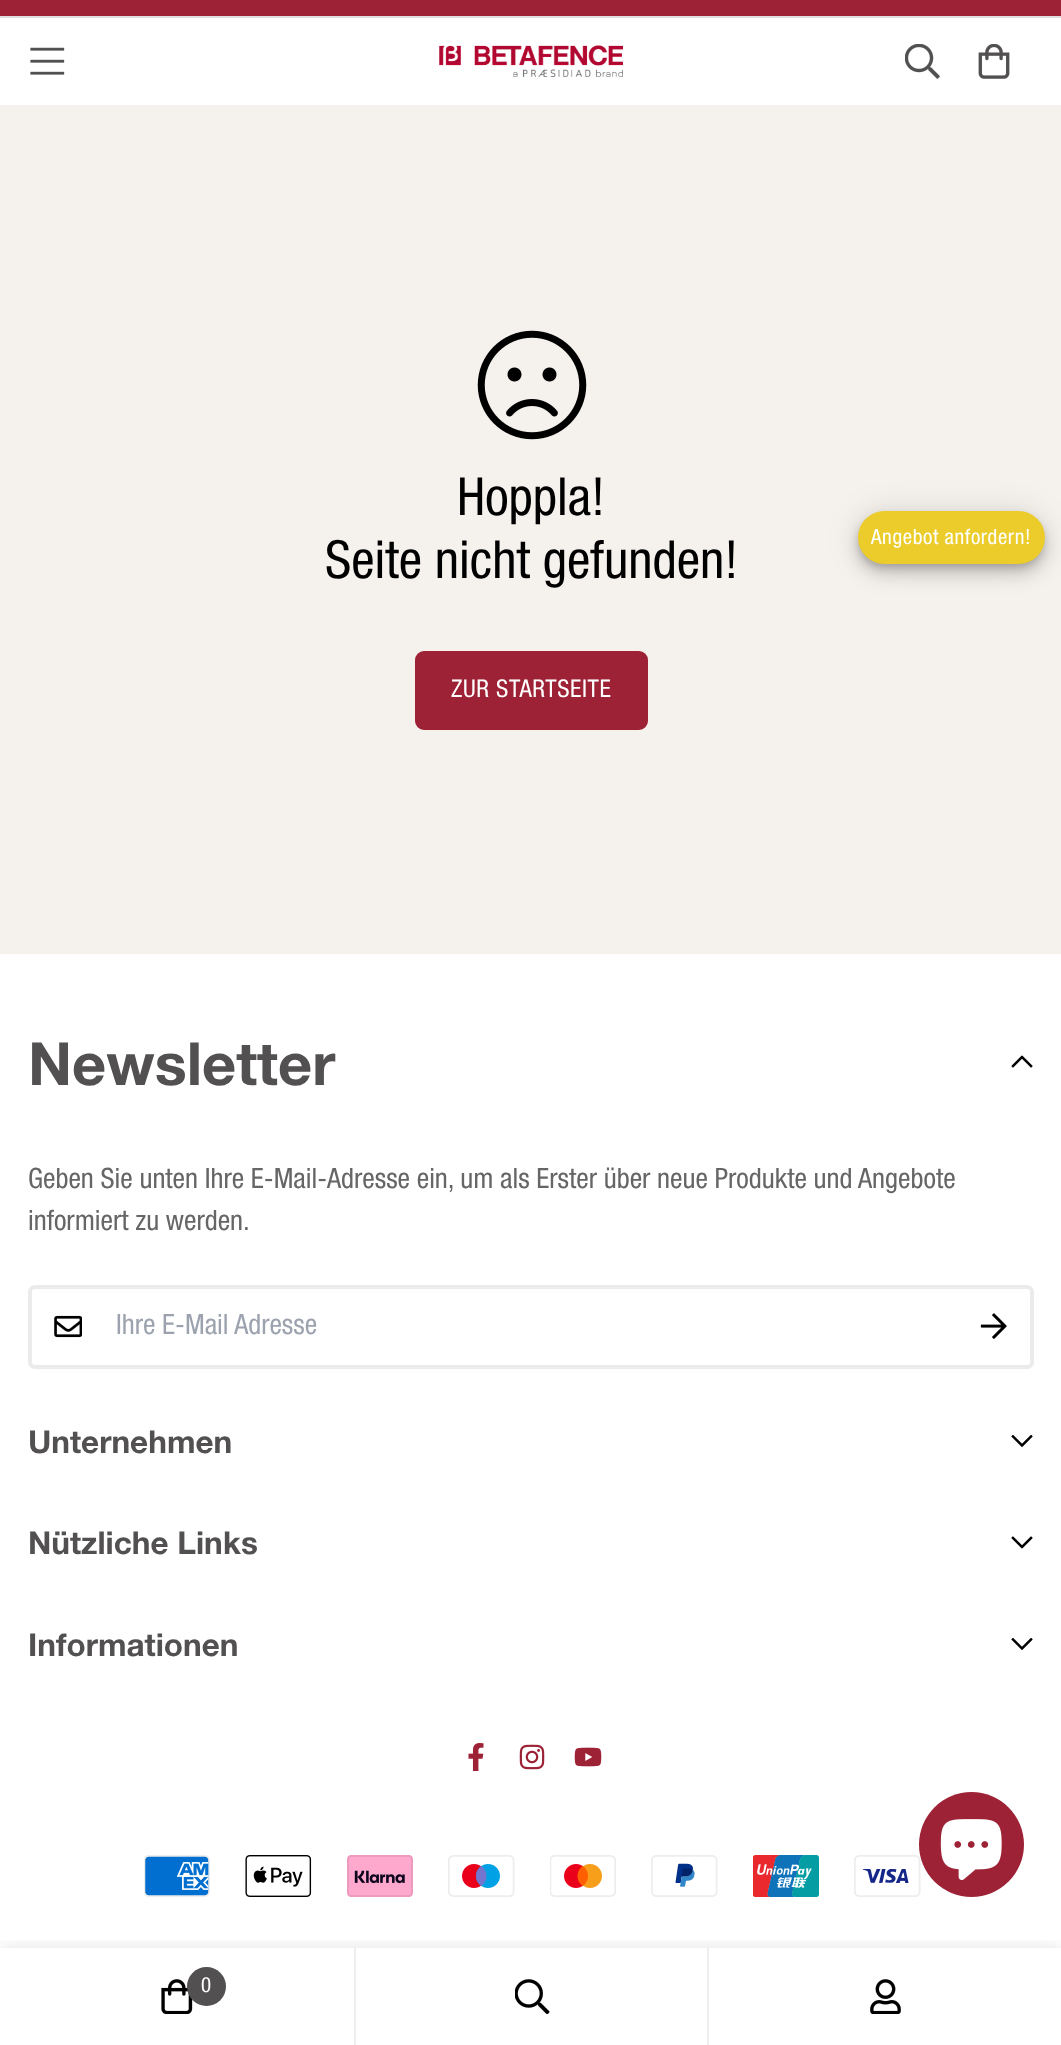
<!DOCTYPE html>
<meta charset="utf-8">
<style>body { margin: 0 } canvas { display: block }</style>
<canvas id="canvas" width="1061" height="2045"></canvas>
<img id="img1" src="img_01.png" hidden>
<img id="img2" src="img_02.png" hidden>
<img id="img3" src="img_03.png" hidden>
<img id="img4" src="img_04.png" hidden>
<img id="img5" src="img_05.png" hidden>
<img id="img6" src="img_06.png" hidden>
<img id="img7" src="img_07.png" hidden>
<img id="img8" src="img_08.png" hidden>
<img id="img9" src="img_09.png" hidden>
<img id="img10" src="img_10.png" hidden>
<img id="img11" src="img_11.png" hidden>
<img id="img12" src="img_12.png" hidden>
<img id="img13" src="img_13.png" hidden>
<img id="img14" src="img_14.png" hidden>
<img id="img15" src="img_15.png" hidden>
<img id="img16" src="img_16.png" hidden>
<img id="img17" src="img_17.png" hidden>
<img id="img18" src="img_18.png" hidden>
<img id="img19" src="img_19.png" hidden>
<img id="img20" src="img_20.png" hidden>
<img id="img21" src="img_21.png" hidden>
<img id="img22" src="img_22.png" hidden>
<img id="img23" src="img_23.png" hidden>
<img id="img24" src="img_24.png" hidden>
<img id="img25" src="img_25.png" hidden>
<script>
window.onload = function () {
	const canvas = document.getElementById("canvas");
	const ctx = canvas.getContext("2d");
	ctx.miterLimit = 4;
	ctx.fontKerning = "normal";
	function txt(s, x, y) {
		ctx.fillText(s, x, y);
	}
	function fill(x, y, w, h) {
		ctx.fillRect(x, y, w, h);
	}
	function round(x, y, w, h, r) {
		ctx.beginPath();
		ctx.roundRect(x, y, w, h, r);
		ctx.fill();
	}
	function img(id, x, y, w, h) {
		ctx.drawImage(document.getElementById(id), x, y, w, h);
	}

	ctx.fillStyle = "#FFFFFF";
	fill(0, 0, 1061, 2045);
	ctx.fillStyle = "#9D2235";
	fill(0, 0, 1061, 16);
	ctx.fillStyle = "#DEDEDE";
	fill(0, 16, 1061, 2);
	img("img1", 30, 47, 35, 28);
	img("img2", 439, 45, 184, 32);
	img("img3", 905, 44, 35, 35);
	img("img4", 978, 44, 32, 35);
	ctx.fillStyle = "#F5F1ED";
	fill(0, 105, 1061, 849);
	img("img5", 477, 330, 110, 110);
	ctx.fillStyle = "#9D2235";
	ctx.beginPath();
	ctx.roundRect(416, 652, 231, 77, 8);
	ctx.fill();
	ctx.strokeStyle = "#9D2235";
	ctx.lineWidth = 2;
	ctx.stroke();
	ctx.fillStyle = "rgba(0, 0, 0, 0.12)";
	ctx.filter = "blur(16px)";
	ctx.beginPath();
	ctx.roundRect(858, 513, 187, 52, 26);
	ctx.fill();
	ctx.filter = "none";
	ctx.fillStyle = "rgba(0, 0, 0, 0.14)";
	ctx.filter = "blur(9px)";
	ctx.beginPath();
	ctx.roundRect(858, 522, 187, 52, 26);
	ctx.fill();
	ctx.filter = "none";
	ctx.fillStyle = "rgba(0, 0, 0, 0.2)";
	ctx.filter = "blur(4.5px)";
	ctx.beginPath();
	ctx.roundRect(859, 518, 184, 49, 24.5);
	ctx.fill();
	ctx.filter = "none";
	ctx.fillStyle = "#EBCC2A";
	round(858, 511, 187, 53, 26.5);
	img("img6", 1011, 1055, 22, 13);
	ctx.beginPath();
	ctx.roundRect(30, 1287, 1002, 80, 5);
	ctx.strokeStyle = "#EBEBEB";
	ctx.lineWidth = 4;
	ctx.stroke();
	img("img7", 54, 1315, 28, 23);
	img("img8", 980, 1313, 27, 26);
	img("img9", 1011, 1434, 22, 13);
	img("img10", 1011, 1536, 22, 13);
	img("img9", 1011, 1637, 22, 13);
	img("img11", 468, 1743, 16, 28);
	img("img12", 519, 1744, 26, 26);
	img("img13", 574, 1747, 28, 20);
	img("img14", 144, 1855, 66, 42);
	img("img15", 245, 1855, 67, 42);
	img("img16", 347, 1855, 66, 42);
	img("img17", 448, 1855, 67, 42);
	img("img18", 550, 1855, 66, 42);
	img("img19", 651, 1855, 67, 42);
	img("img20", 753, 1855, 66, 42);
	img("img21", 854, 1855, 67, 42);
	ctx.fillStyle = "#9D2235";
	ctx.beginPath();
	ctx.arc(971.5, 1844.5, 52.5, 0, Math.PI * 2);
	ctx.fill();
	img("img22", 940, 1819, 62, 61);
	ctx.save();
	ctx.beginPath();
	ctx.rect(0, 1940, 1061, 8);
	ctx.clip();
	ctx.fillStyle = "rgba(0, 0, 0, 0.11)";
	ctx.filter = "blur(9px)";
	ctx.beginPath();
	ctx.rect(0, 1948, 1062, 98);
	ctx.fill();
	ctx.filter = "none";
	ctx.restore();
	ctx.fillStyle = "#EEEEEE";
	fill(354, 1948, 2, 97);
	img("img23", 161, 1979, 32, 35);
	ctx.fillStyle = "#525051";
	ctx.beginPath();
	ctx.arc(206.5, 1986.5, 19.5, 0, Math.PI * 2);
	ctx.fill();
	ctx.fillStyle = "#EEEEEE";
	fill(707, 1948, 2, 97);
	img("img24", 515, 1979, 35, 35);
	img("img25", 870, 1979, 31, 35);
	ctx.font = "italic 52.5px Helvetica Neue";
	ctx.fillStyle = "#000000";
	txt("Hoppla!", 457, 515);
	txt("Seite nicht gefunden!", 325, 578);
	ctx.letterSpacing = "0.6px";
	ctx.font = "italic 24.5px Helvetica Neue";
	ctx.fillStyle = "#FFFFFF";
	txt("ZUR STARTSEITE", 451, 697);
	ctx.font = "italic 21px Helvetica Neue";
	txt("Angebot anfordern!", 871, 544);
	ctx.letterSpacing = "0px";
	ctx.font = "bold 59.5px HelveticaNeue";
	ctx.fillStyle = "#525051";
	txt("Newsletter", 28, 1085);
	ctx.font = "italic 28px Helvetica Neue";
	ctx.fillStyle = "#666666";
	txt("Geben Sie unten Ihre E-Mail-Adresse ein, um als Erster über neue Produkte und Angebote", 28, 1188);
	txt("informiert zu werden.", 28, 1230);
	ctx.fillStyle = "#9CA3AF";
	txt("Ihre E-Mail Adresse", 116, 1334);
	ctx.font = "bold 31.5px HelveticaNeue";
	ctx.fillStyle = "#525051";
	txt("Unternehmen", 28, 1453);
	txt("Nützliche Links", 28, 1554);
	txt("Informationen", 28, 1656);
	ctx.font = "italic 21px Helvetica Neue";
	ctx.fillStyle = "#FFFFFF";
	txt("0", 201, 1992);
};
</script>
